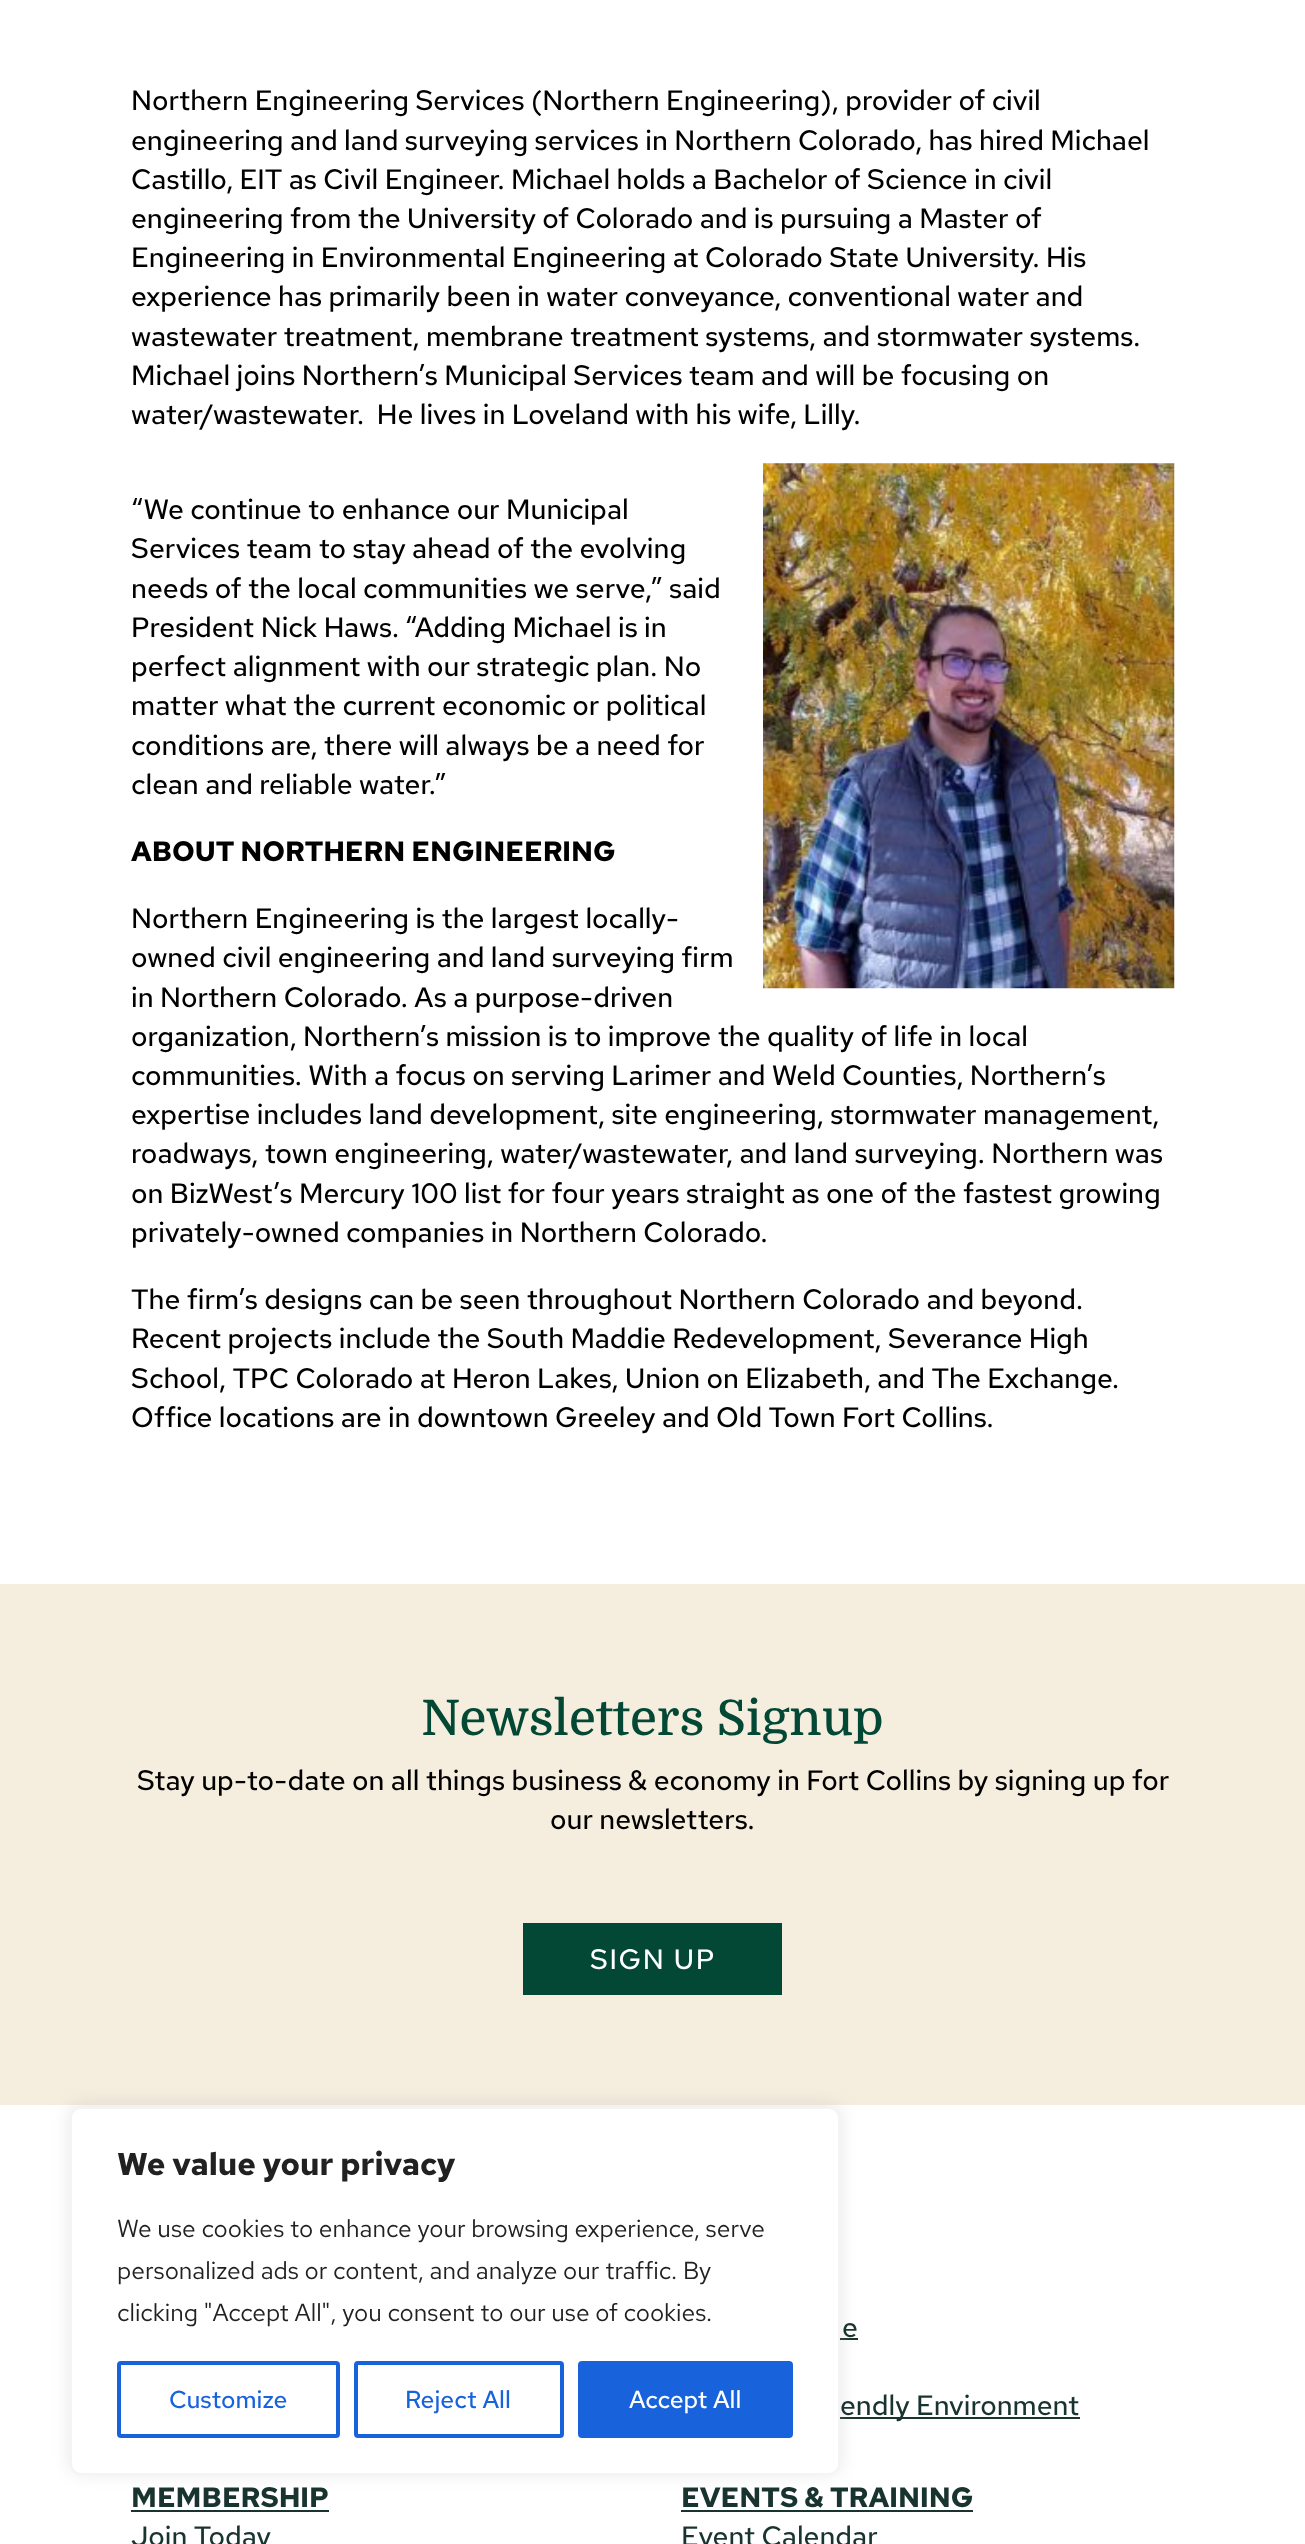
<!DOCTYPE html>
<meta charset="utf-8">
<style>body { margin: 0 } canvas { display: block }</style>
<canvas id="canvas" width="1305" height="2544"></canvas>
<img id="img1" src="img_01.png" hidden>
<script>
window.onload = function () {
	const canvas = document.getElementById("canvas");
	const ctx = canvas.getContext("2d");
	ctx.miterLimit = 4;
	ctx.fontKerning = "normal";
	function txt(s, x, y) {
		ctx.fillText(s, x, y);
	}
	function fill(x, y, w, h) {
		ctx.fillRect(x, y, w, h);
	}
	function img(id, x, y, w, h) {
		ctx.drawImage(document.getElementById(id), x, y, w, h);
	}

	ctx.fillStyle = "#FFFFFF";
	fill(0, 0, 1305, 2544);
	img("img1", 763, 463, 412, 526);
	ctx.fillStyle = "#F5EDDE";
	fill(0, 1584, 1305, 521);
	ctx.fillStyle = "#034835";
	fill(523, 1923, 259, 72);
	ctx.fillStyle = "#19332F";
	fill(840, 2338, 18, 2);
	fill(840, 2417, 240, 2);
	fill(131, 2510, 198, 2);
	fill(681, 2510, 292, 2);
	ctx.fillStyle = "rgba(172, 171, 171, 0.3)";
	ctx.filter = "blur(9px)";
	ctx.beginPath();
	ctx.roundRect(70, 2105, 770, 368, 11);
	ctx.fill();
	ctx.filter = "none";
	ctx.fillStyle = "#FFFFFF";
	ctx.beginPath();
	ctx.roundRect(71, 2108, 768, 366, 10);
	ctx.fill();
	ctx.strokeStyle = "#F4F4F4";
	ctx.lineWidth = 2;
	ctx.stroke();
	ctx.beginPath();
	ctx.roundRect(119, 2363, 219, 73, 2);
	ctx.strokeStyle = "#1863DC";
	ctx.lineWidth = 4;
	ctx.stroke();
	ctx.beginPath();
	ctx.roundRect(356, 2363, 206, 73, 2);
	ctx.stroke();
	ctx.fillStyle = "#1863DC";
	ctx.beginPath();
	ctx.roundRect(580, 2363, 211, 73, 2);
	ctx.fill();
	ctx.stroke();
	ctx.font = "500 28px Red Hat Text";
	ctx.fillStyle = "#000000";
	txt("Northern Engineering Services (Northern Engineering), provider of civil", 131, 110);
	txt("engineering and land surveying services in Northern Colorado, has hired Michael", 131, 150);
	txt("Castillo, EIT as Civil Engineer. Michael holds a Bachelor of Science in civil", 131, 189);
	txt("engineering from the University of Colorado and is pursuing a Master of", 131, 228);
	txt("Engineering in Environmental Engineering at Colorado State University. His", 131, 267);
	txt("experience has primarily been in water conveyance, conventional water and", 131, 306);
	txt("wastewater treatment, membrane treatment systems, and stormwater systems.", 131, 346);
	txt("Michael joins Northern’s Municipal Services team and will be focusing on", 131, 385);
	txt("water/wastewater.  He lives in Loveland with his wife, Lilly.", 131, 424);
	txt("“We continue to enhance our Municipal", 131, 519);
	txt("Services team to stay ahead of the evolving", 131, 558);
	txt("needs of the local communities we serve,” said", 131, 598);
	txt("President Nick Haws. “Adding Michael is in", 131, 637);
	txt("perfect alignment with our strategic plan. No", 131, 676);
	txt("matter what the current economic or political", 131, 715);
	txt("conditions are, there will always be a need for", 131, 755);
	txt("clean and reliable water.”", 131, 794);
	ctx.font = "bold 28px Red Hat Text";
	txt("ABOUT NORTHERN ENGINEERING", 131, 861);
	ctx.font = "500 28px Red Hat Text";
	txt("Northern Engineering is the largest locally-", 131, 928);
	txt("owned civil engineering and land surveying firm", 131, 967);
	txt("in Northern Colorado. As a purpose-driven", 131, 1007);
	txt("organization, Northern’s mission is to improve the quality of life in local", 131, 1046);
	txt("communities. With a focus on serving Larimer and Weld Counties, Northern’s", 131, 1085);
	txt("expertise includes land development, site engineering, stormwater management,", 131, 1124);
	txt("roadways, town engineering, water/wastewater, and land surveying. Northern was", 131, 1163);
	txt("on BizWest’s Mercury 100 list for four years straight as one of the fastest growing", 131, 1203);
	txt("privately-owned companies in Northern Colorado.", 131, 1242);
	txt("The firm’s designs can be seen throughout Northern Colorado and beyond.", 131, 1309);
	txt("Recent projects include the South Maddie Redevelopment, Severance High", 131, 1348);
	txt("School, TPC Colorado at Heron Lakes, Union on Elizabeth, and The Exchange.", 131, 1388);
	txt("Office locations are in downtown Greeley and Old Town Fort Collins.", 131, 1427);
	ctx.font = "500 49px Domine";
	ctx.fillStyle = "#034835";
	txt("Newsletters Signup", 421, 1735);
	ctx.font = "500 28px Red Hat Text";
	ctx.fillStyle = "#000000";
	txt("Stay up-to-date on all things business & economy in Fort Collins by signing up for", 137, 1790);
	txt("our newsletters.", 550, 1829);
	ctx.letterSpacing = "1.75px";
	ctx.fillStyle = "#FFFFFF";
	txt("SIGN UP", 590, 1969);
	ctx.letterSpacing = "0px";
	ctx.fillStyle = "#19332F";
	txt("e", 842, 2337);
	txt("endly Environment", 840, 2415);
	ctx.font = "bold 28px Red Hat Text";
	txt("MEMBERSHIP", 131, 2507);
	ctx.font = "500 28px Red Hat Text";
	txt("Join Today", 131, 2546);
	ctx.font = "bold 28px Red Hat Text";
	txt("EVENTS & TRAINING", 681, 2507);
	ctx.font = "500 28px Red Hat Text";
	txt("Event Calendar", 681, 2546);
	ctx.font = "bold 31.5px Red Hat Text";
	ctx.fillStyle = "#212121";
	txt("We value your privacy", 117, 2175);
	ctx.font = "24.5px Red Hat Text";
	txt("We use cookies to enhance your browsing experience, serve", 117, 2237);
	txt("personalized ads or content, and analyze our traffic. By", 117, 2279);
	txt("clicking \"Accept All\", you consent to our use of cookies.", 117, 2321);
	ctx.font = "500 24.5px Red Hat Text";
	ctx.fillStyle = "#1863DC";
	txt("Customize", 169, 2408);
	txt("Reject All", 405, 2408);
	ctx.fillStyle = "#FFFFFF";
	txt("Accept All", 629, 2408);
};
</script>
